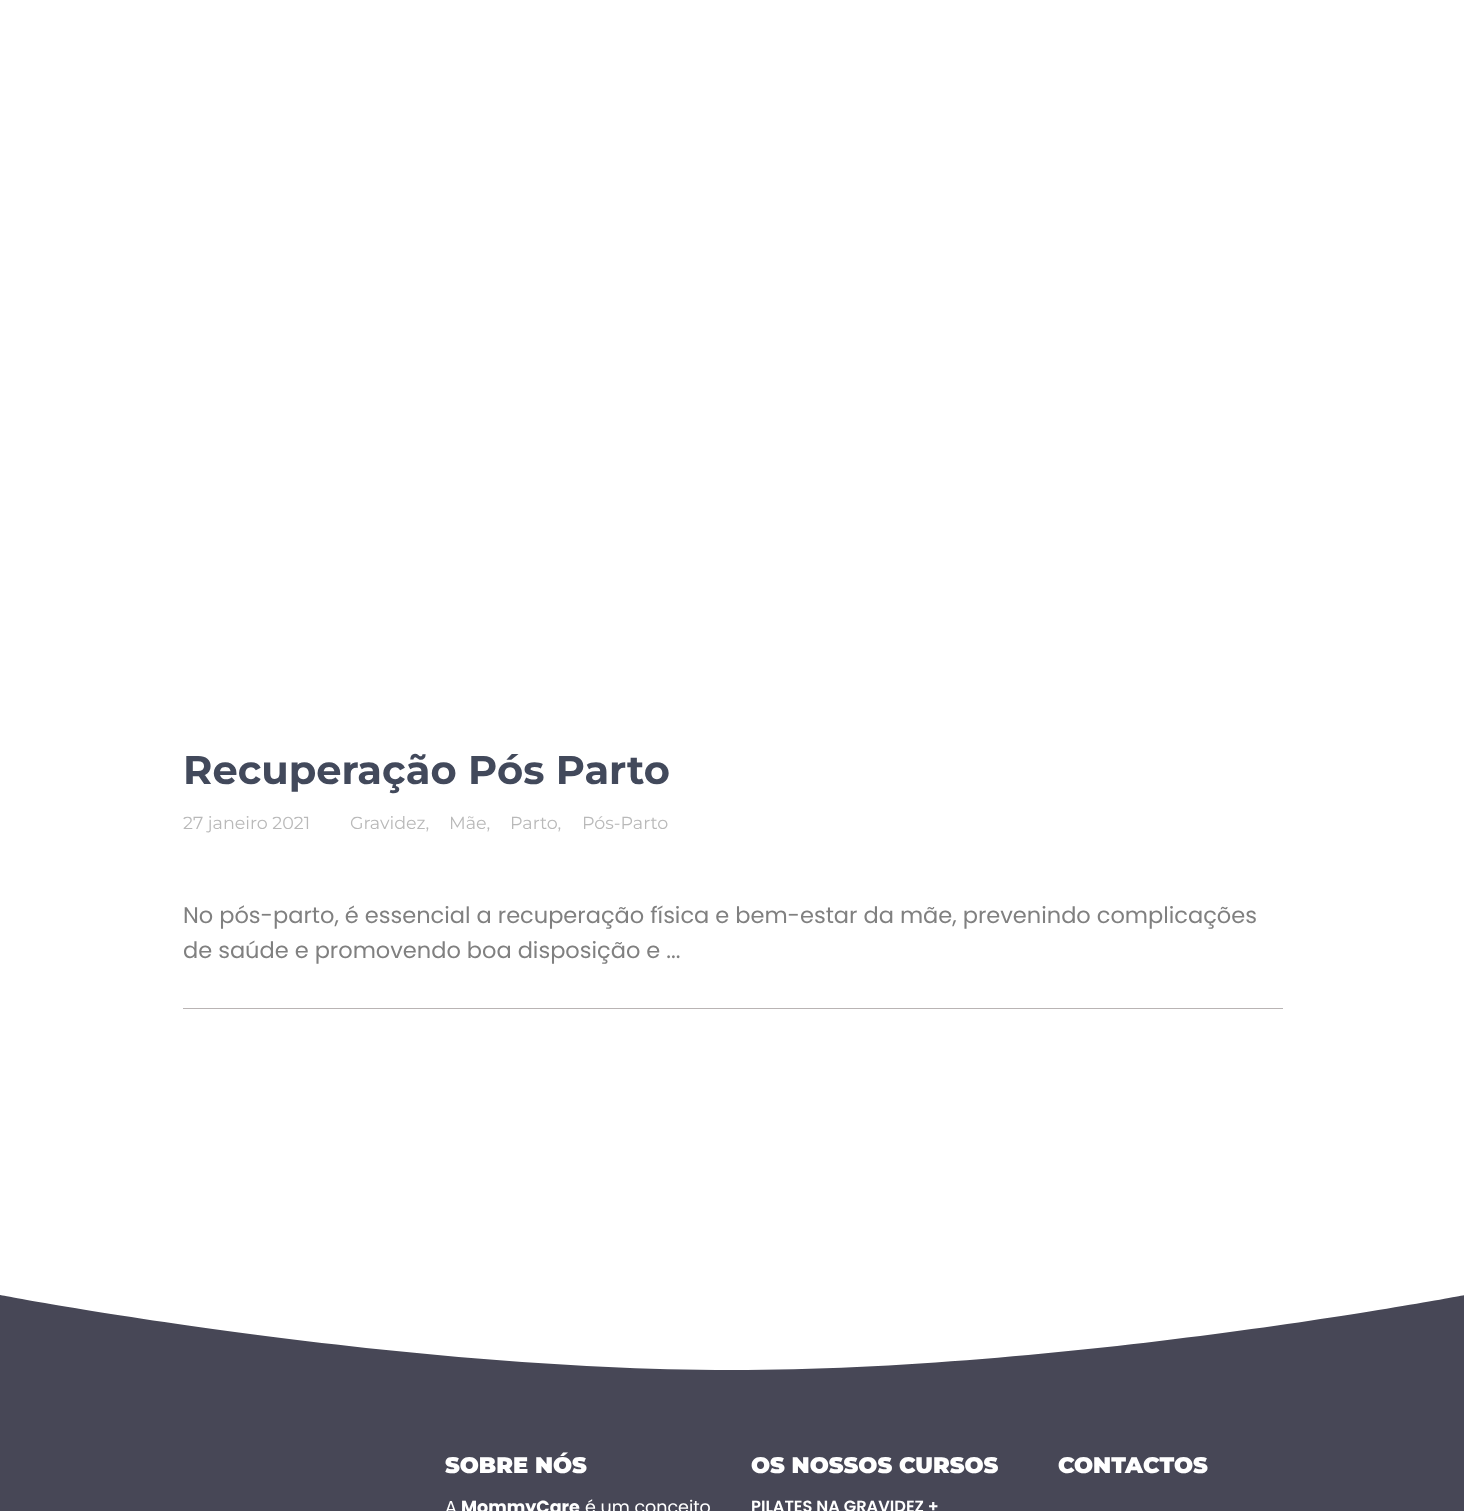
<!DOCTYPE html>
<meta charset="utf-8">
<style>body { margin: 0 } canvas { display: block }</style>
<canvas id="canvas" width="1464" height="1511"></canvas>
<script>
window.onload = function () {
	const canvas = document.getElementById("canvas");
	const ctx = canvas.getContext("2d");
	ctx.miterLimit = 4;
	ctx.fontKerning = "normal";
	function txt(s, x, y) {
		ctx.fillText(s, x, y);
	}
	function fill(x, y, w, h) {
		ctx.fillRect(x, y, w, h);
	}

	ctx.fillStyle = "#FFFFFF";
	fill(0, 0, 1464, 1511);
	ctx.fillStyle = "#B9B4B4";
	fill(183, 1008, 1100, 1);
	ctx.fillStyle = "#474756";
	ctx.beginPath();
	ctx.moveTo(732, 1370);
	ctx.bezierCurveTo(393, 1370, 0, 1295, 0, 1295);
	ctx.lineTo(0, 1374);
	ctx.lineTo(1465, 1374);
	ctx.lineTo(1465, 1295);
	ctx.bezierCurveTo(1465, 1295, 1072, 1370, 732, 1370);
	ctx.closePath();
	ctx.fill();
	fill(0, 1374, 1464, 137);
	ctx.font = "bold 40px Montserrat";
	ctx.fillStyle = "#42495B";
	txt("Recuperação Pós Parto", 183, 784);
	ctx.font = "17.5px Montserrat";
	ctx.fillStyle = "#B9B9B9";
	txt("27 janeiro 2021", 183, 829);
	txt("Gravidez,", 350, 829);
	txt("Mãe,", 449, 829);
	txt("Parto,", 510, 829);
	txt("Pós-Parto", 582, 829);
	ctx.font = "22.5px Poppins";
	ctx.fillStyle = "#808080";
	txt("No pós-parto, é essencial a recuperação física e bem-estar da mãe, prevenindo complicações", 183, 923);
	txt("de saúde e promovendo boa disposição e ...", 183, 958);
	ctx.font = "900 22.5px Montserrat";
	ctx.fillStyle = "#FFFFFF";
	txt("SOBRE NÓS", 445, 1473);
	ctx.font = "17.5px Poppins";
	txt("A", 445, 1513);
	ctx.font = "bold 17.5px Poppins";
	txt("MommyCare", 461, 1513);
	ctx.font = "17.5px Poppins";
	txt("é um conceito", 585, 1513);
	ctx.font = "900 22.5px Montserrat";
	txt("OS NOSSOS CURSOS", 751, 1473);
	ctx.font = "600 16.25px Poppins";
	txt("PILATES NA GRAVIDEZ +", 751, 1512);
	ctx.font = "900 22.5px Montserrat";
	txt("CONTACTOS", 1058, 1473);
};
</script>
